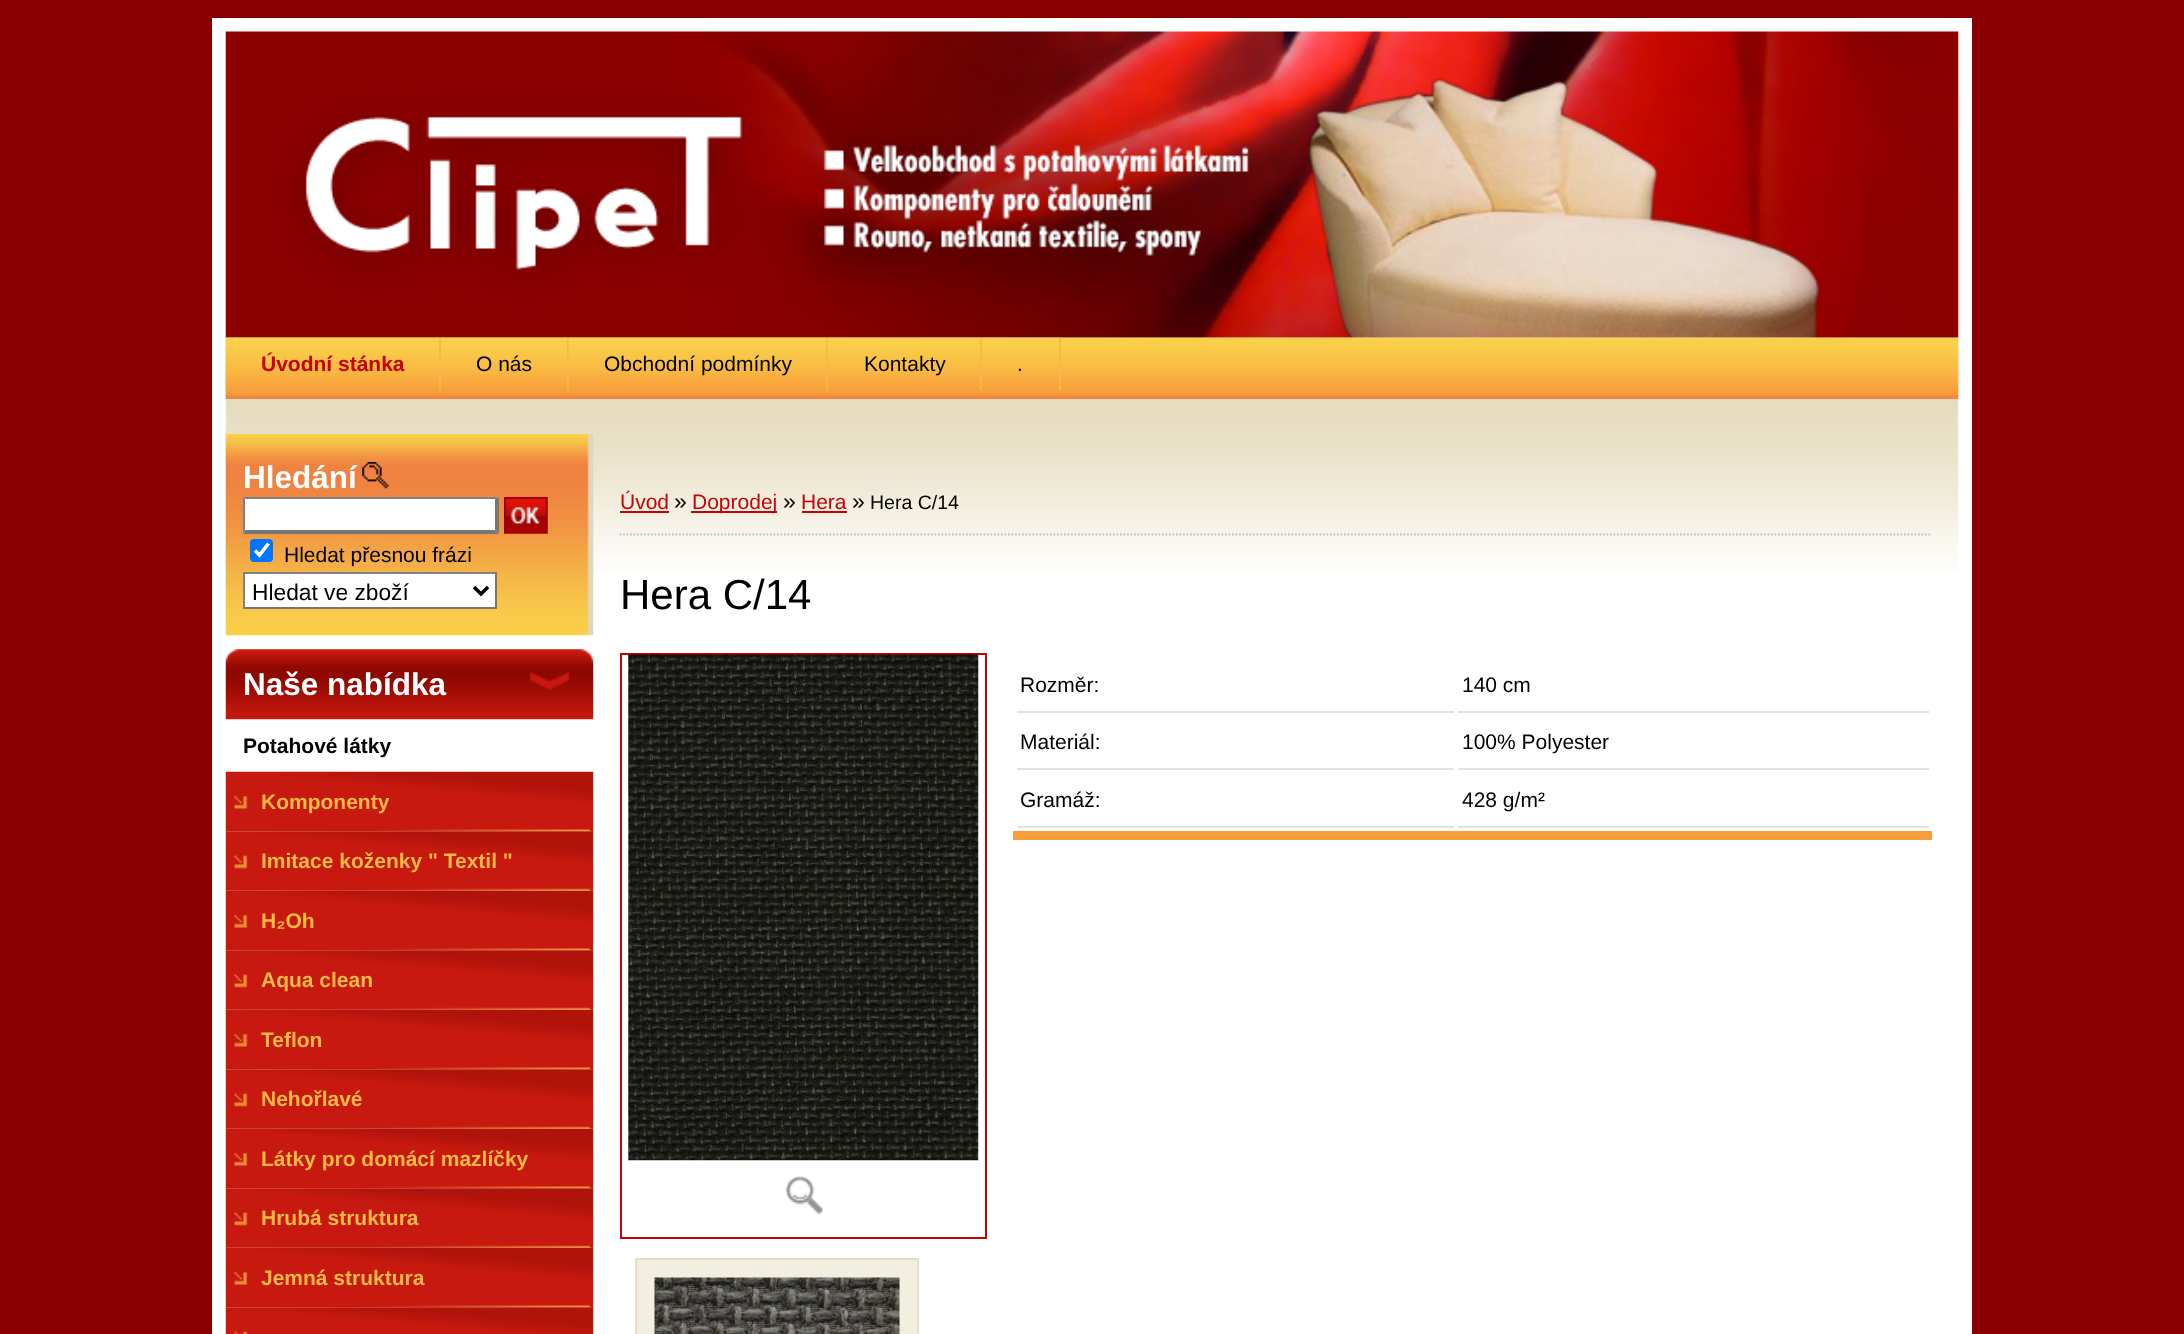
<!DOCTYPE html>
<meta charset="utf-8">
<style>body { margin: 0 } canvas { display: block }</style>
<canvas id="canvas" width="2184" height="1334"></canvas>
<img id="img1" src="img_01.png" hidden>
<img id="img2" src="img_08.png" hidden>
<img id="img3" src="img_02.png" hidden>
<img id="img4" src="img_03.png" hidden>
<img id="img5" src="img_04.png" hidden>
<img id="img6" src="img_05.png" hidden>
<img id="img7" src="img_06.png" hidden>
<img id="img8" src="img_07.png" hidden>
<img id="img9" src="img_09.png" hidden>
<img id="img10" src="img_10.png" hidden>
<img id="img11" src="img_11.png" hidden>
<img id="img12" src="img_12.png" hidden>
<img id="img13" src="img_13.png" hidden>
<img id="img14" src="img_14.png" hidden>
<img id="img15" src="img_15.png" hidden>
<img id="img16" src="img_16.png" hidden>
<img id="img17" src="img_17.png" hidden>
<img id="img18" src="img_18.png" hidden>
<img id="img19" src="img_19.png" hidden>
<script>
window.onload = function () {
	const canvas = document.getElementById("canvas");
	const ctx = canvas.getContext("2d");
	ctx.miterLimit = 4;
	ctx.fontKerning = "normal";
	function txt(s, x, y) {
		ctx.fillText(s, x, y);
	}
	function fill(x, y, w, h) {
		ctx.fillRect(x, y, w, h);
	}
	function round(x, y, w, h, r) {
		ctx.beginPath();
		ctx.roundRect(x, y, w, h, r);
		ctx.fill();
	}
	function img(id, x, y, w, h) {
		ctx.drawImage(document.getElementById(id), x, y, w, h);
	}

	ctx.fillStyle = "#8A0002";
	fill(0, 0, 2184, 1334);
	ctx.fillStyle = "#FFFFFF";
	fill(212, 18, 1760, 1316);
	img("img1", 225, 31, 1734, 307);
	img("img2", 225, 337, 1734, 235);
	img("img3", 225, 337, 1734, 62);
	img("img4", 225, 337, 216, 54);
	ctx.fillStyle = "#F9BA43";
	fill(439, 338, 2, 52);
	img("img5", 441, 337, 128, 1);
	fill(567, 338, 2, 52);
	img("img6", 568, 337, 260, 53);
	fill(826, 338, 2, 52);
	img("img7", 827, 337, 155, 53);
	fill(980, 338, 2, 52);
	img("img8", 981, 337, 80, 53);
	fill(1059, 338, 2, 52);
	img("img9", 225, 434, 369, 202);
	img("img10", 362, 462, 27, 27);
	ctx.fillStyle = "#FFFFFF";
	fill(243, 497, 256, 37);
	ctx.fillStyle = "#808080";
	ctx.beginPath();
	ctx.moveTo(243, 497);
	ctx.lineTo(499, 497);
	ctx.lineTo(495, 499);
	ctx.lineTo(245, 499);
	ctx.closePath();
	ctx.fill();
	ctx.fillStyle = "#767676";
	ctx.beginPath();
	ctx.moveTo(499, 497);
	ctx.lineTo(499, 534);
	ctx.lineTo(495, 530);
	ctx.lineTo(495, 499);
	ctx.closePath();
	ctx.fill();
	ctx.beginPath();
	ctx.moveTo(499, 534);
	ctx.lineTo(243, 534);
	ctx.lineTo(245, 530);
	ctx.lineTo(495, 530);
	ctx.closePath();
	ctx.fill();
	ctx.fillStyle = "#808080";
	ctx.beginPath();
	ctx.moveTo(243, 534);
	ctx.lineTo(243, 497);
	ctx.lineTo(245, 499);
	ctx.lineTo(245, 530);
	ctx.closePath();
	ctx.fill();
	img("img11", 504, 497, 44, 37);
	ctx.fillStyle = "#0075FF";
	round(250, 539, 23, 23, 4);
	ctx.beginPath();
	ctx.moveTo(255, 550.5);
	ctx.lineTo(259.5, 555);
	ctx.lineTo(268.5, 543.5);
	ctx.strokeStyle = "#FFFFFF";
	ctx.lineWidth = 3.6;
	ctx.stroke();
	ctx.fillStyle = "#FFFFFF";
	fill(245, 574, 250, 33);
	ctx.fillStyle = "#808080";
	fill(243, 572, 254, 2);
	ctx.fillStyle = "#767676";
	fill(495, 572, 2, 37);
	fill(243, 607, 254, 2);
	ctx.fillStyle = "#808080";
	fill(243, 572, 2, 37);
	ctx.beginPath();
	ctx.moveTo(474, 587);
	ctx.lineTo(481, 594);
	ctx.lineTo(488, 587);
	ctx.strokeStyle = "#000000";
	ctx.lineWidth = 3.5;
	ctx.stroke();
	img("img12", 225, 649, 369, 71);
	img("img13", 225, 771, 369, 61);
	img("img14", 225, 831, 369, 60);
	img("img15", 225, 890, 369, 61);
	img("img14", 225, 950, 369, 60);
	img("img15", 225, 1009, 369, 61);
	img("img14", 225, 1069, 369, 60);
	img("img15", 225, 1128, 369, 61);
	img("img14", 225, 1188, 369, 60);
	img("img15", 225, 1247, 369, 61);
	img("img16", 225, 1307, 369, 27);
	ctx.beginPath();
	ctx.moveTo(619.5, 534.5);
	ctx.lineTo(1932, 534.5);
	ctx.strokeStyle = "#C0C0C0";
	ctx.lineWidth = 1.8;
	ctx.setLineDash([1.75, 1.75]);
	ctx.stroke();
	ctx.fillStyle = "#C30405";
	fill(620, 511, 49, 2);
	fill(691, 511, 86, 2);
	fill(802, 511, 45, 2);
	ctx.strokeStyle = "#C30405";
	ctx.lineWidth = 2;
	ctx.setLineDash([]);
	ctx.strokeRect(621, 654, 365, 584);
	img("img17", 628, 654, 351, 507);
	img("img18", 785, 1176, 38, 39);
	ctx.fillStyle = "#F89D3C";
	fill(1013, 831, 919, 9);
	ctx.fillStyle = "#E2E2E2";
	fill(1017, 711, 437, 2);
	fill(1458, 711, 471, 2);
	fill(1017, 768, 437, 2);
	fill(1458, 768, 471, 2);
	fill(1017, 826, 437, 2);
	fill(1458, 826, 471, 2);
	ctx.fillStyle = "#F2EEE0";
	ctx.beginPath();
	ctx.rect(636, 1259, 282, 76);
	ctx.fill();
	ctx.strokeStyle = "#E8DFC3";
	ctx.stroke();
	img("img19", 654, 1277, 246, 57);
	ctx.font = "bold 21px Liberation Sans";
	ctx.fillStyle = "#C30405";
	txt("Úvodní stánka", 261, 371);
	ctx.font = "21px Liberation Sans";
	ctx.fillStyle = "#000000";
	txt("O nás", 476, 371);
	txt("Obchodní podmínky", 604, 371);
	txt("Kontakty", 864, 371);
	txt(".", 1017, 371);
	ctx.font = "bold 31.5px Liberation Sans";
	ctx.fillStyle = "#FFFFFF";
	txt("Hledání", 243, 488);
	ctx.font = "21px Liberation Sans";
	ctx.fillStyle = "#000000";
	txt("Hledat přesnou frázi", 284, 562);
	ctx.font = "22.75px Liberation Sans";
	txt("Hledat ve zboží", 252, 600);
	ctx.font = "bold 31.5px Liberation Sans";
	ctx.fillStyle = "#FFFFFF";
	txt("Naše nabídka", 243, 695);
	ctx.font = "bold 21px Liberation Sans";
	ctx.fillStyle = "#000000";
	txt("Potahové látky", 243, 753);
	ctx.fillStyle = "#F9BA43";
	txt("Komponenty", 261, 809);
	txt("Imitace koženky \" Textil \"", 261, 868);
	txt("H₂Oh", 261, 928);
	txt("Aqua clean", 261, 987);
	txt("Teflon", 261, 1047);
	txt("Nehořlavé", 261, 1106);
	txt("Látky pro domácí mazlíčky", 261, 1166);
	txt("Hrubá struktura", 261, 1225);
	txt("Jemná struktura", 261, 1285);
	ctx.font = "21px Liberation Sans";
	ctx.fillStyle = "#C30405";
	txt("Úvod", 620, 509);
	ctx.font = "23px Liberation Sans";
	ctx.fillStyle = "#000000";
	txt("»", 674, 509);
	ctx.font = "21px Liberation Sans";
	ctx.fillStyle = "#C30405";
	txt("Doprodej", 692, 509);
	ctx.font = "23px Liberation Sans";
	ctx.fillStyle = "#000000";
	txt("»", 783, 509);
	ctx.font = "21px Liberation Sans";
	ctx.fillStyle = "#C30405";
	txt("Hera", 801, 509);
	ctx.font = "23px Liberation Sans";
	ctx.fillStyle = "#000000";
	txt("»", 852, 509);
	ctx.font = "19.5px Liberation Sans";
	txt("Hera C/14", 870, 509);
	ctx.font = "42px Liberation Sans";
	txt("Hera C/14", 620, 609);
	ctx.font = "21px Liberation Sans";
	txt("Rozměr:", 1020, 692);
	txt("140 cm", 1462, 692);
	txt("Materiál:", 1020, 749);
	txt("100% Polyester", 1462, 749);
	txt("Gramáž:", 1020, 807);
	txt("428 g/m²", 1462, 807);
};
</script>
